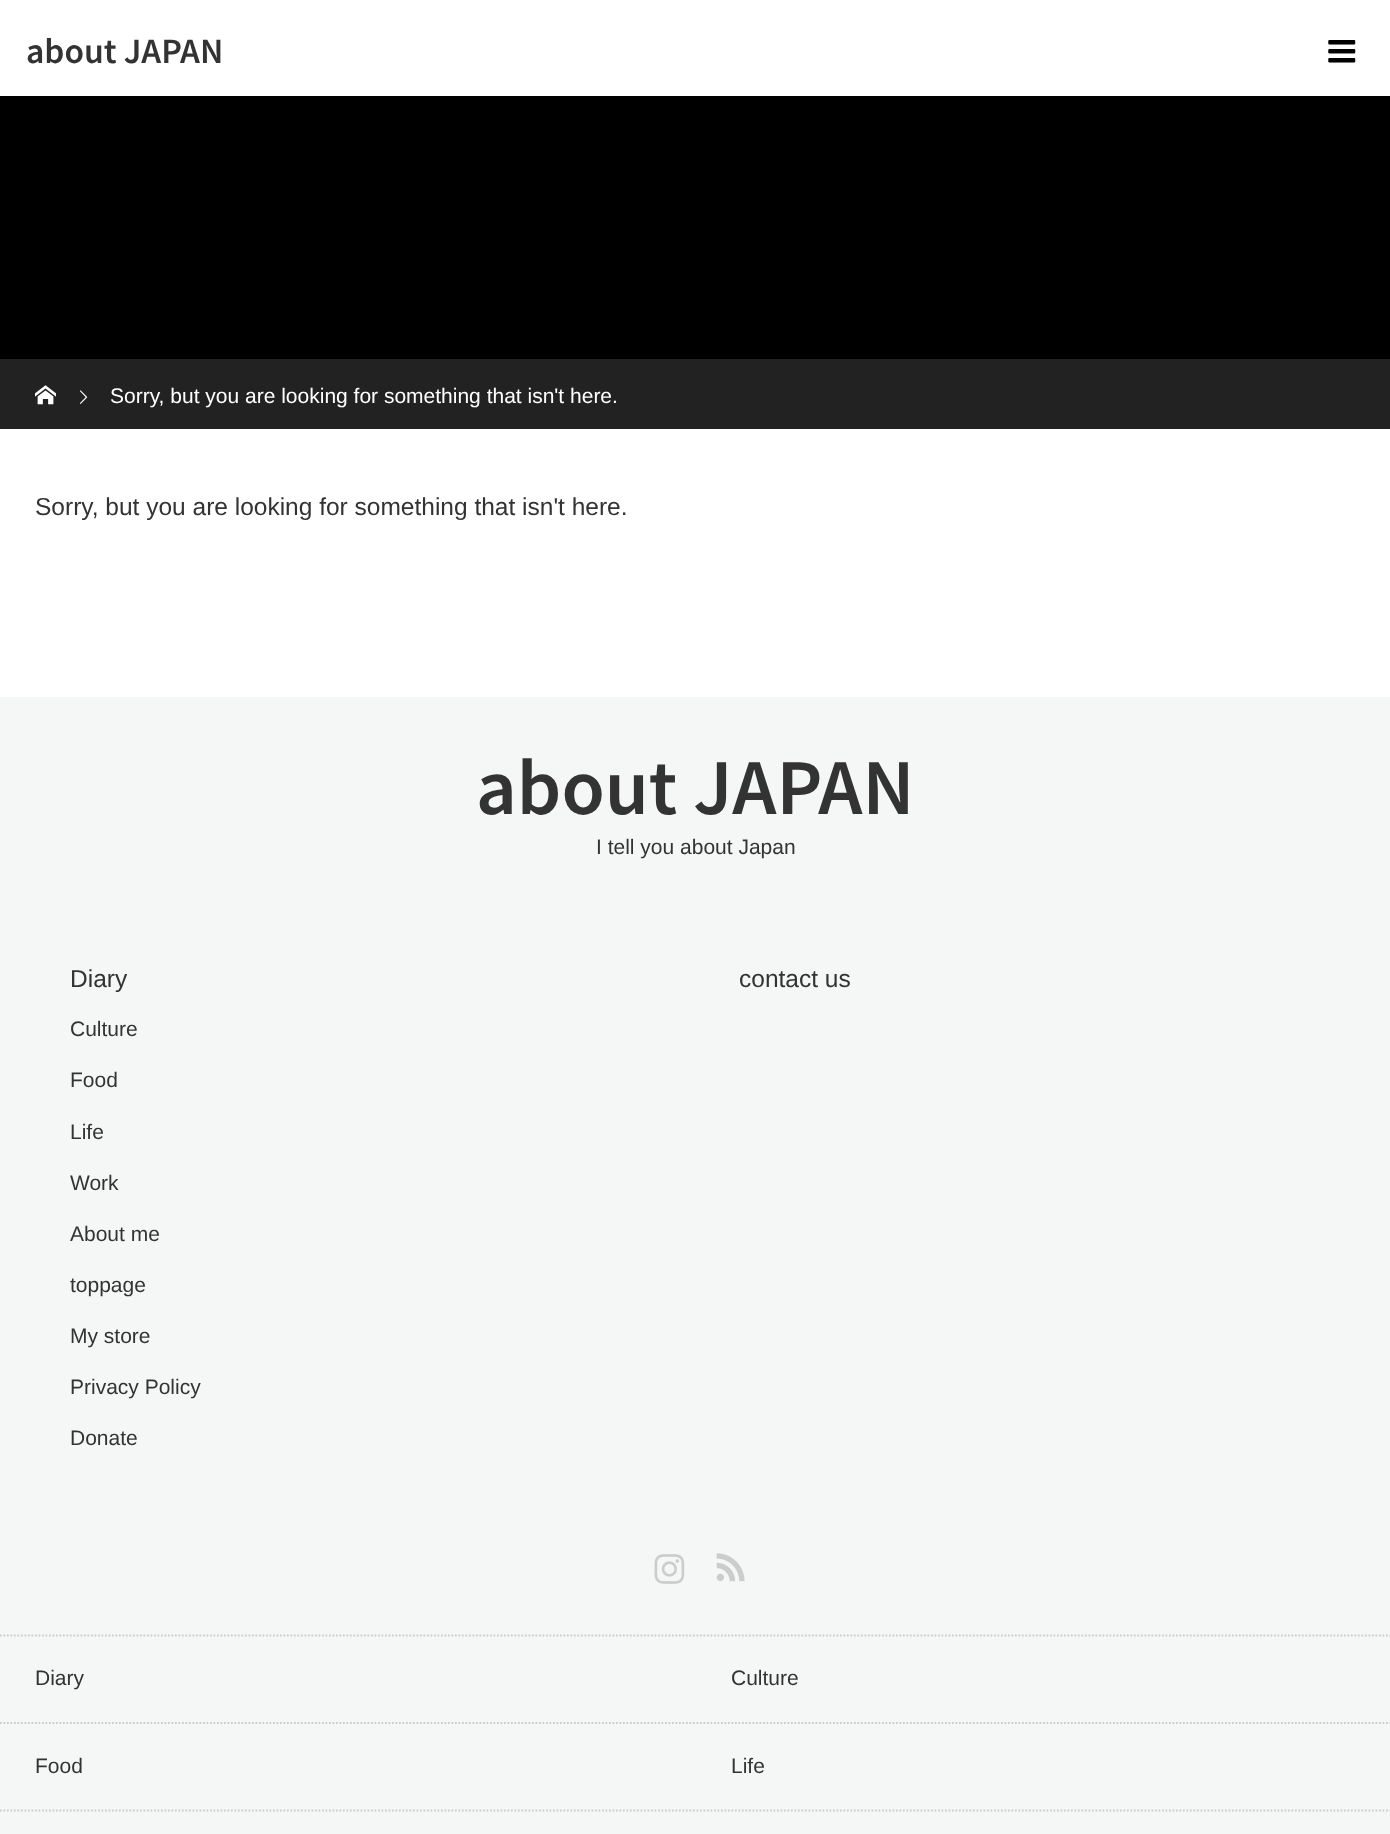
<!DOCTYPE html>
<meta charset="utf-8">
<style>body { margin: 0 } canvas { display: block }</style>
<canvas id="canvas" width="1390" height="1834"></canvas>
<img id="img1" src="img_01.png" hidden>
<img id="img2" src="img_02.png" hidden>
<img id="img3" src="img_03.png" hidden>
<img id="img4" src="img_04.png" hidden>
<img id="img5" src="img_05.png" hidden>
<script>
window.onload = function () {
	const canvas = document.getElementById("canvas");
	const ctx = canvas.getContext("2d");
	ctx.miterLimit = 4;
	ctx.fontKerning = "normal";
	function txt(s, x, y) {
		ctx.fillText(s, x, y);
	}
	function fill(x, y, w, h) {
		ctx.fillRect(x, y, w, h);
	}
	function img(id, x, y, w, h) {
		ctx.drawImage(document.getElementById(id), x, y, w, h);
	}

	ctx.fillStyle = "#FFFFFF";
	fill(0, 0, 1390, 1834);
	img("img1", 1328, 40, 28, 23);
	ctx.fillStyle = "#000000";
	fill(0, 96, 1390, 263);
	ctx.fillStyle = "#222222";
	fill(0, 359, 1390, 70);
	img("img2", 35, 385, 21, 20);
	img("img3", 79, 390, 9, 14);
	ctx.fillStyle = "#F5F7F6";
	fill(0, 697, 1390, 1137);
	img("img4", 654, 1554, 31, 30);
	img("img5", 716, 1553, 29, 29);
	ctx.beginPath();
	ctx.moveTo(0, 1635.5);
	ctx.lineTo(696.5, 1635.5);
	ctx.strokeStyle = "#CCCCCC";
	ctx.lineWidth = 1.8;
	ctx.setLineDash([1.75, 1.75]);
	ctx.stroke();
	ctx.beginPath();
	ctx.moveTo(696.5, 1635.5);
	ctx.lineTo(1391, 1635.5);
	ctx.stroke();
	ctx.beginPath();
	ctx.moveTo(0, 1723);
	ctx.lineTo(696.5, 1723);
	ctx.stroke();
	ctx.beginPath();
	ctx.moveTo(696.5, 1723);
	ctx.lineTo(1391, 1723);
	ctx.stroke();
	ctx.beginPath();
	ctx.moveTo(0, 1810.5);
	ctx.lineTo(696.5, 1810.5);
	ctx.stroke();
	ctx.beginPath();
	ctx.moveTo(696.5, 1810.5);
	ctx.lineTo(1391, 1810.5);
	ctx.stroke();
	ctx.font = "600 31.5px Noto Sans JP";
	ctx.fillStyle = "#333333";
	txt("about JAPAN", 26, 63);
	ctx.font = "21px Liberation Sans";
	ctx.fillStyle = "#FFFFFF";
	txt("Sorry, but you are looking for something that isn't here.", 110, 403);
	ctx.font = "24.5px Liberation Sans";
	ctx.fillStyle = "#333333";
	txt("Sorry, but you are looking for something that isn't here.", 35, 515);
	ctx.font = "600 70px Noto Sans JP";
	txt("about JAPAN", 476, 814);
	ctx.font = "21px Liberation Sans";
	txt("I tell you about Japan", 596, 854);
	ctx.font = "24.5px Liberation Sans";
	txt("Diary", 70, 987);
	ctx.font = "21px Liberation Sans";
	txt("Culture", 70, 1036);
	txt("Food", 70, 1087);
	txt("Life", 70, 1139);
	txt("Work", 70, 1190);
	txt("About me", 70, 1241);
	txt("toppage", 70, 1292);
	txt("My store", 70, 1343);
	txt("Privacy Policy", 70, 1394);
	txt("Donate", 70, 1445);
	ctx.font = "24.5px Liberation Sans";
	txt("contact us", 739, 987);
	ctx.font = "21px Liberation Sans";
	txt("Diary", 35, 1685);
	txt("Culture", 731, 1685);
	txt("Food", 35, 1773);
	txt("Life", 731, 1773);
};
</script>
